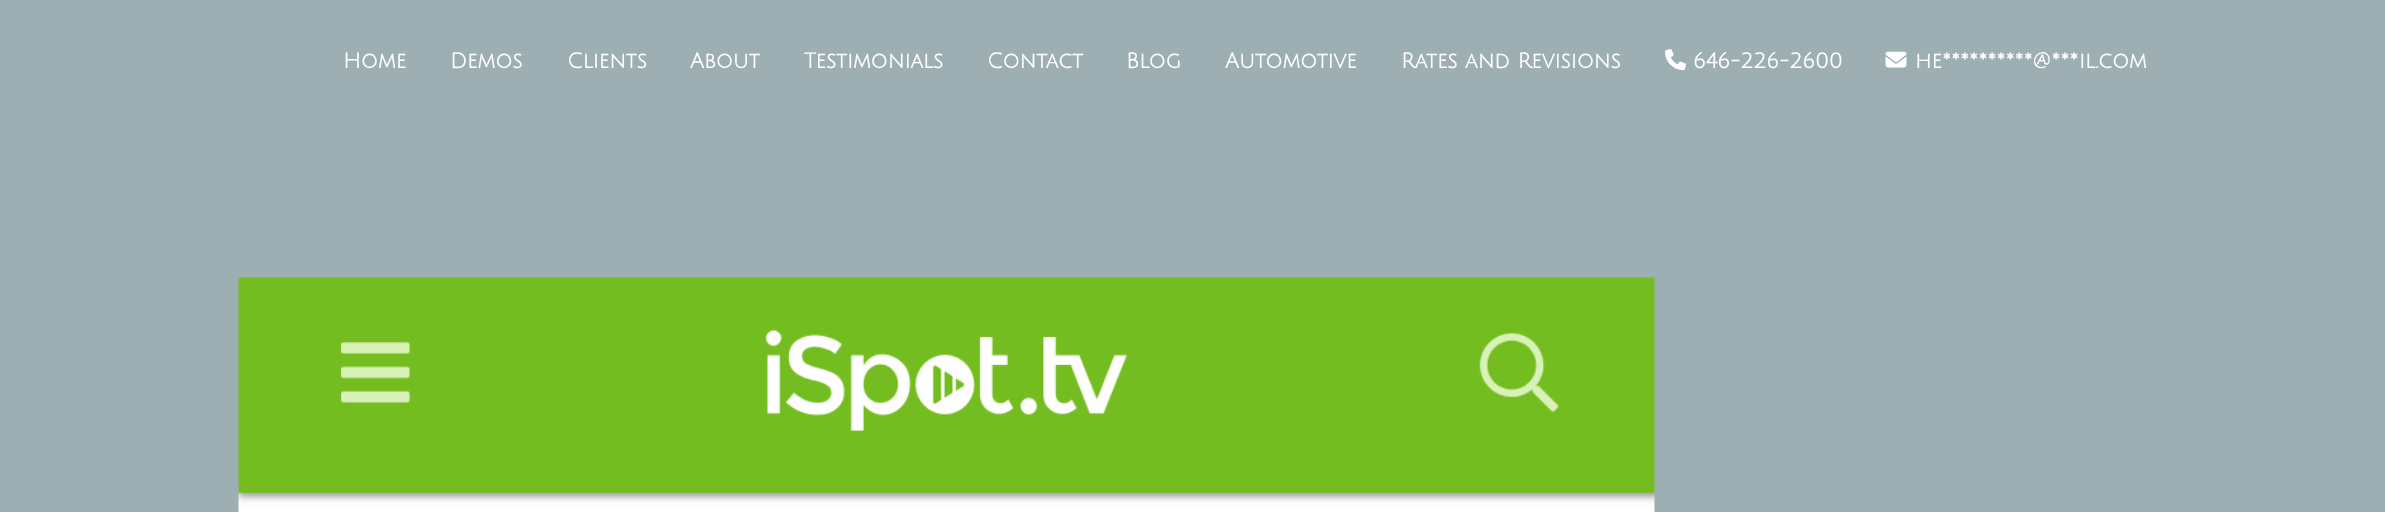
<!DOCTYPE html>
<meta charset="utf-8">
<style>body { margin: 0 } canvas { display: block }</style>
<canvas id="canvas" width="2385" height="512"></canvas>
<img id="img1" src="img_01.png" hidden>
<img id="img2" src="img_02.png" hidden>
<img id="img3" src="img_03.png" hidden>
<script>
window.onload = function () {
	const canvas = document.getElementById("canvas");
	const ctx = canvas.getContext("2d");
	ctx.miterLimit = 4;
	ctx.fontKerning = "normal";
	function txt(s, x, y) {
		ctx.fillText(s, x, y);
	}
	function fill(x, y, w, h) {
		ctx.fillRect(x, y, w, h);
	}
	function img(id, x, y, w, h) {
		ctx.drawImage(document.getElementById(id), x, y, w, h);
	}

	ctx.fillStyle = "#9EAFB4";
	fill(0, 0, 2385, 512);
	img("img1", 1665, 49, 21, 22);
	img("img2", 1885, 51, 22, 17);
	img("img3", 238, 277, 1417, 235);
	ctx.font = "bold 21px Julius Sans One";
	ctx.fillStyle = "#FFFFFF";
	txt("Home", 343, 68);
	txt("Demos", 450, 68);
	txt("Clients", 567, 68);
	txt("About", 690, 68);
	txt("Testimonials", 804, 68);
	txt("Contact", 987, 68);
	txt("Blog", 1126, 68);
	txt("Automotive", 1225, 68);
	txt("Rates and Revisions", 1401, 68);
	txt("646-226-2600", 1693, 68);
	txt("he**********", 1915, 68);
	txt("@***", 2032, 68);
	txt("il.com", 2079, 68);
};
</script>
